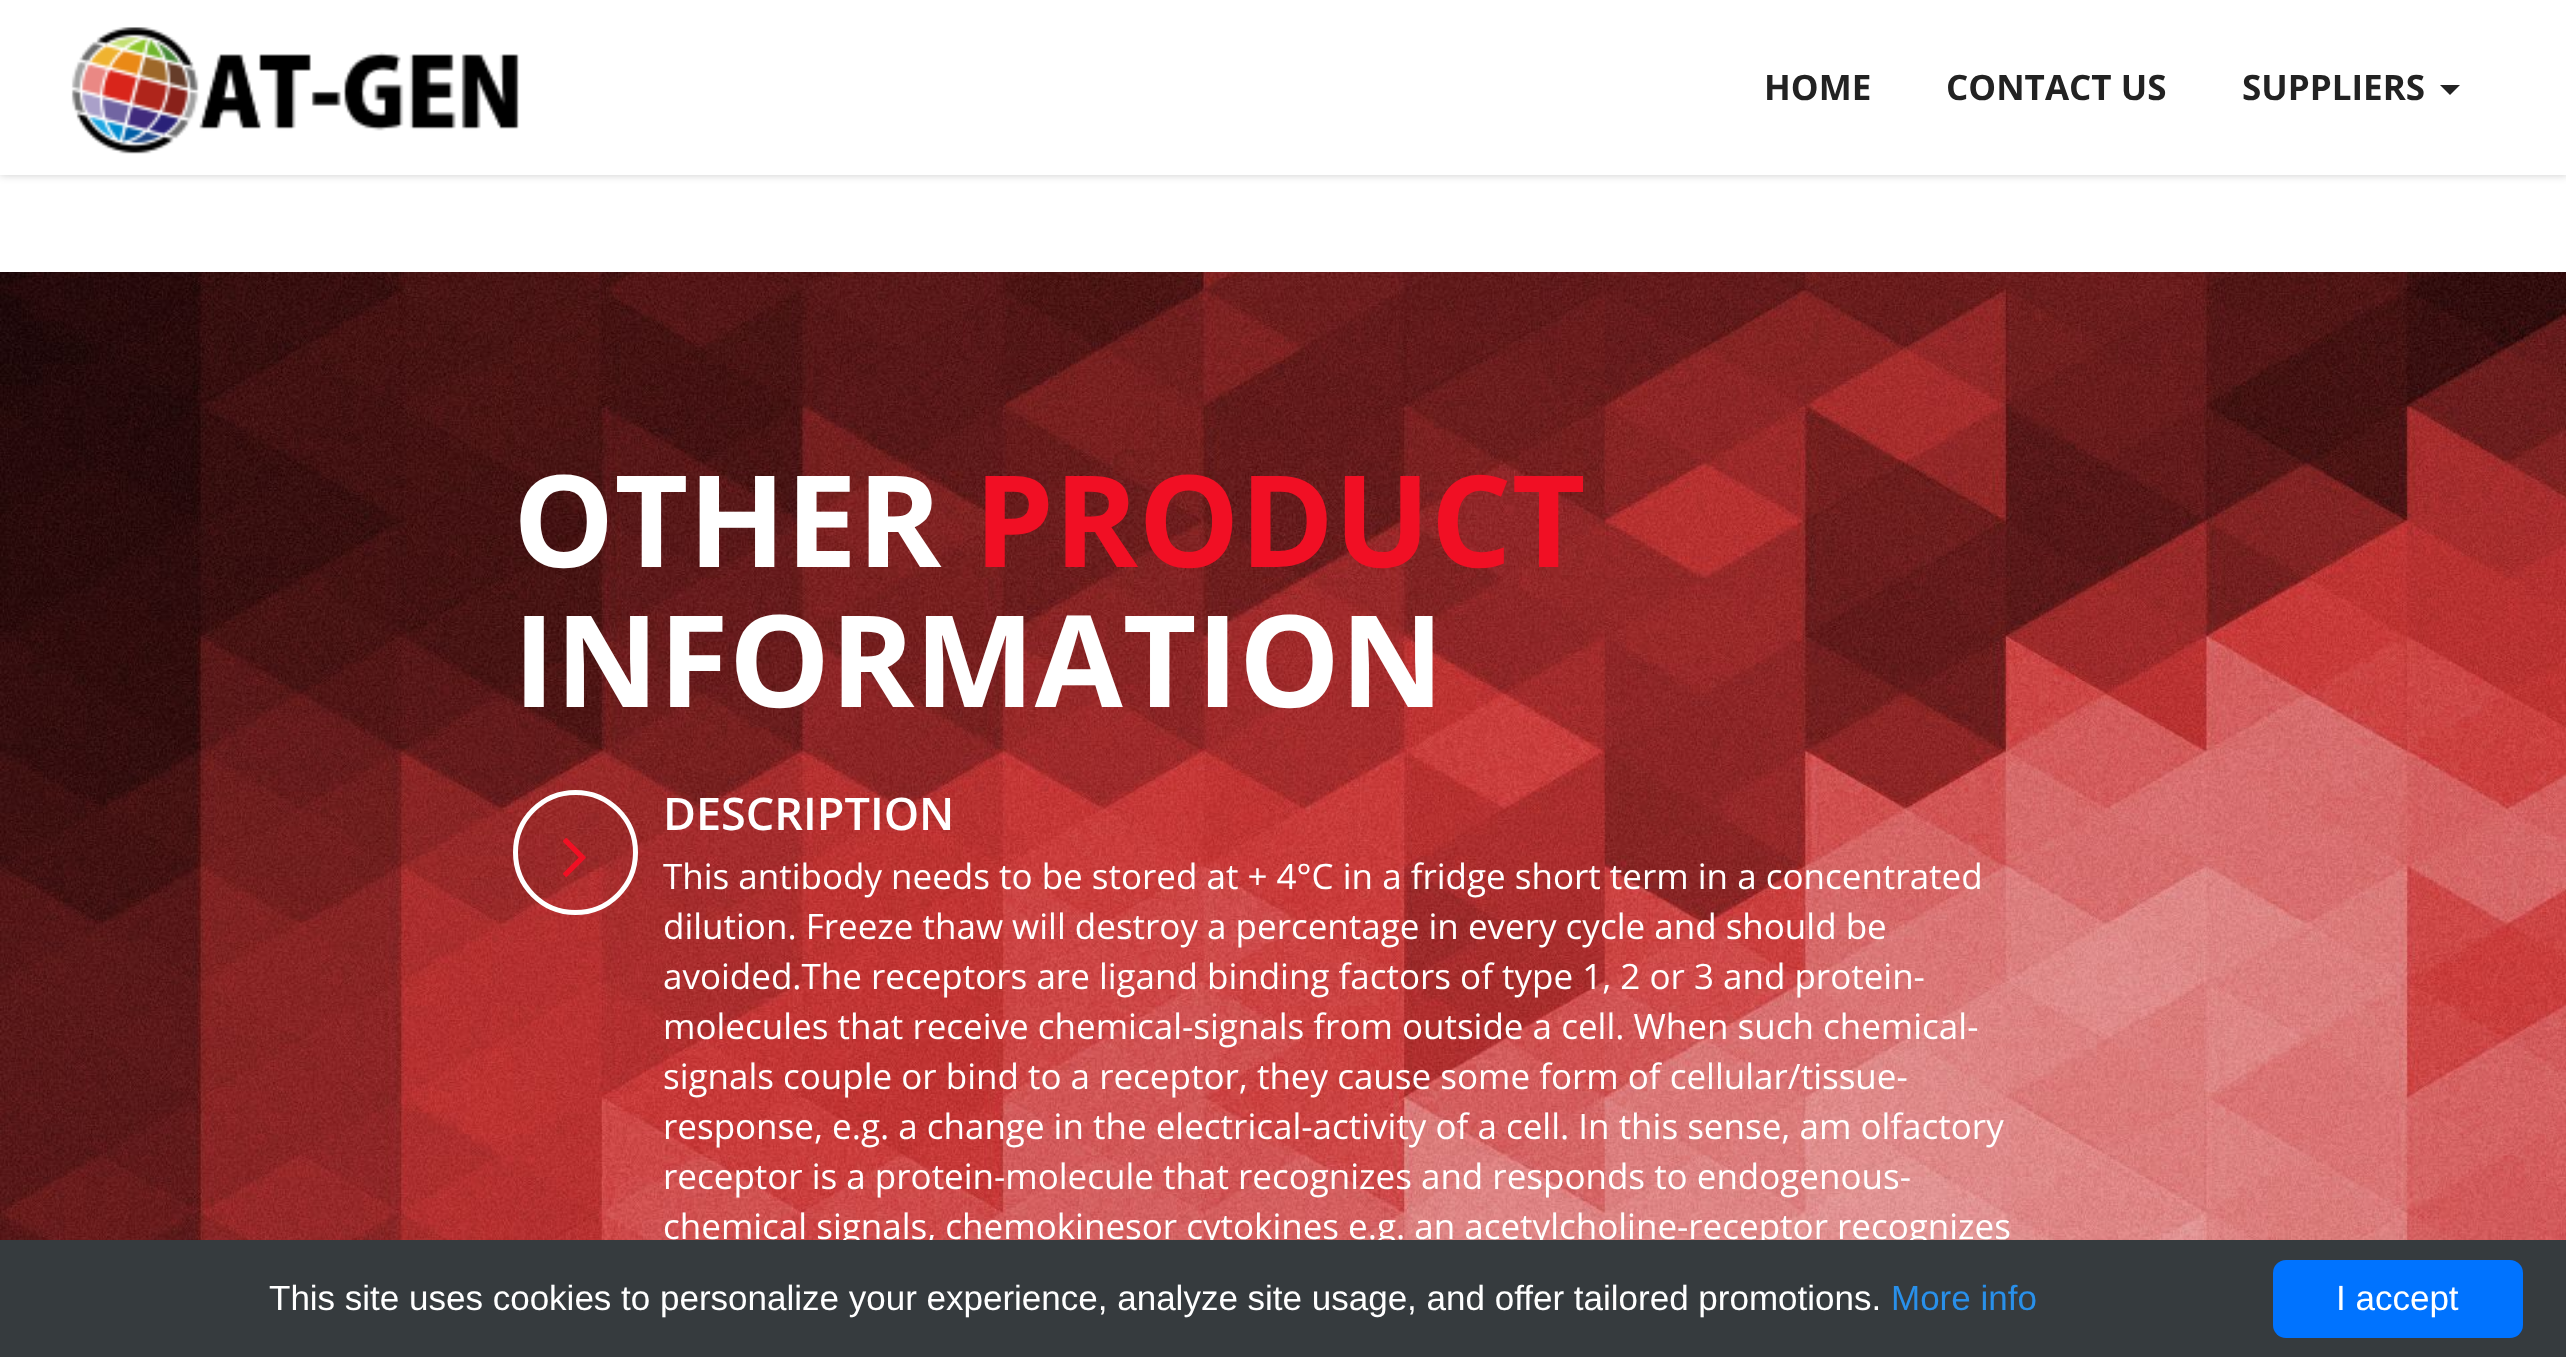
<!DOCTYPE html>
<meta charset="utf-8">
<style>body { margin: 0 } canvas { display: block }</style>
<canvas id="canvas" width="2566" height="1357"></canvas>
<img id="img1" src="img_01.png" hidden>
<img id="img2" src="img_02.png" hidden>
<img id="img3" src="img_03.png" hidden>
<script>
window.onload = function () {
	const canvas = document.getElementById("canvas");
	const ctx = canvas.getContext("2d");
	ctx.miterLimit = 4;
	ctx.fontKerning = "normal";
	function txt(s, x, y) {
		ctx.fillText(s, x, y);
	}
	function fill(x, y, w, h) {
		ctx.fillRect(x, y, w, h);
	}
	function round(x, y, w, h, r) {
		ctx.beginPath();
		ctx.roundRect(x, y, w, h, r);
		ctx.fill();
	}
	function img(id, x, y, w, h) {
		ctx.drawImage(document.getElementById(id), x, y, w, h);
	}

	ctx.fillStyle = "#FFFFFF";
	fill(0, 0, 2566, 1357);
	ctx.fillStyle = "rgba(0, 0, 0, 0.2)";
	ctx.filter = "blur(4px)";
	ctx.beginPath();
	ctx.rect(0, 0, 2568, 175);
	ctx.fill();
	ctx.filter = "none";
	ctx.fillStyle = "#FFFFFF";
	fill(0, 0, 2566, 175);
	img("img1", 71, 27, 448, 127);
	ctx.fillStyle = "#222222";
	ctx.beginPath();
	ctx.moveTo(2440, 85);
	ctx.lineTo(2460, 85);
	ctx.lineTo(2450, 95);
	ctx.closePath();
	ctx.fill();
	img("img2", 0, 272, 2566, 968);
	ctx.beginPath();
	ctx.arc(575.5, 852.5, 60, 0, Math.PI * 2);
	ctx.strokeStyle = "#FFFFFF";
	ctx.lineWidth = 5;
	ctx.stroke();
	img("img3", 563, 838, 23, 39);
	ctx.font = "bold 35px Open Sans";
	txt("HOME", 1764, 100);
	txt("CONTACT US", 1946, 100);
	txt("SUPPLIERS", 2242, 100);
	ctx.font = "bold 127.5px Open Sans";
	ctx.fillStyle = "#FFFFFF";
	txt("OTHER", 513, 567);
	ctx.fillStyle = "#F10F24";
	txt("PRODUCT", 974, 567);
	ctx.fillStyle = "#FFFFFF";
	txt("INFORMATION", 513, 707);
	ctx.font = "600 45px Open Sans";
	txt("DESCRIPTION", 663, 830);
	ctx.font = "35px Open Sans";
	txt("This antibody needs to be stored at + 4°C in a fridge short term in a concentrated", 663, 889);
	txt("dilution. Freeze thaw will destroy a percentage in every cycle and should be", 663, 939);
	txt("avoided.The receptors are ligand binding factors of type 1, 2 or 3 and protein-", 663, 989);
	txt("molecules that receive chemical-signals from outside a cell. When such chemical-", 663, 1039);
	txt("signals couple or bind to a receptor, they cause some form of cellular/tissue-", 663, 1089);
	txt("response, e.g. a change in the electrical-activity of a cell. In this sense, am olfactory", 663, 1139);
	txt("receptor is a protein-molecule that recognizes and responds to endogenous-", 663, 1189);
	txt("chemical signals, chemokinesor cytokines e.g. an acetylcholine-receptor recognizes", 663, 1239);
	ctx.fillStyle = "#363B3E";
	fill(0, 1240, 2566, 117);
	ctx.font = "35px Liberation Sans";
	ctx.fillStyle = "#FFFFFF";
	txt("This site uses cookies to personalize your experience, analyze site usage, and offer tailored promotions.", 269, 1310);
	ctx.fillStyle = "#2990EA";
	txt("More info", 1891, 1310);
	ctx.fillStyle = "#0073FF";
	round(2273, 1260, 250, 78, 13);
	ctx.fillStyle = "#FFFFFF";
	txt("I accept", 2336, 1310);
};
</script>
